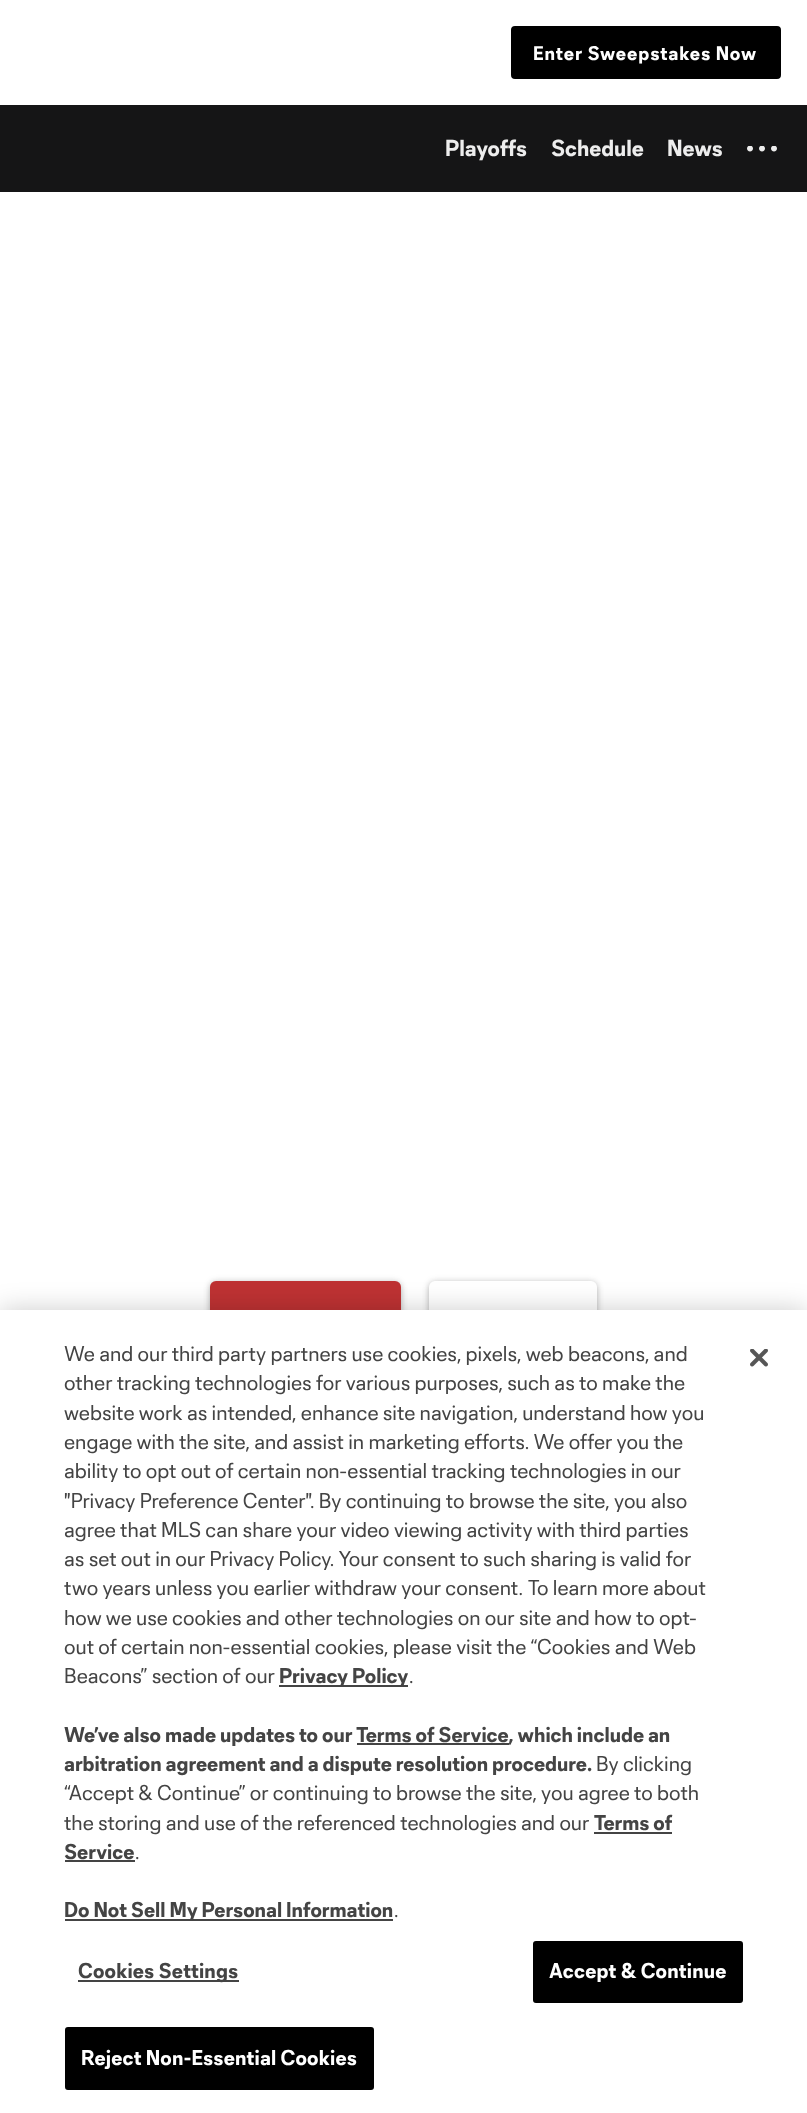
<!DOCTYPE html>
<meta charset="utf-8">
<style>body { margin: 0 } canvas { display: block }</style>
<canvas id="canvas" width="807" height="2113"></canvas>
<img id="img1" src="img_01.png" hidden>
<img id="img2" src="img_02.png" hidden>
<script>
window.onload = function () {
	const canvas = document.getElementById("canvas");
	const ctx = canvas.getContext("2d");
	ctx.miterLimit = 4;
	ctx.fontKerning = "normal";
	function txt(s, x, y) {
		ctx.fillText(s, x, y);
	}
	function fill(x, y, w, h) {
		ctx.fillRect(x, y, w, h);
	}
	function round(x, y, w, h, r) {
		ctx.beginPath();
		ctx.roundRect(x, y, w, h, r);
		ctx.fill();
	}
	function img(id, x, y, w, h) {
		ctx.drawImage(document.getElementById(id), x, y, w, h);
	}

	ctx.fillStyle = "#FFFFFF";
	fill(0, 0, 807, 2113);
	ctx.fillStyle = "#000000";
	ctx.beginPath();
	ctx.roundRect(510, 25, 272, 55, 5);
	ctx.fill();
	ctx.strokeStyle = "#FFFFFF";
	ctx.lineWidth = 2;
	ctx.stroke();
	ctx.fillStyle = "#151516";
	fill(0, 105, 807, 87);
	img("img1", 747, 146, 30, 6);
	ctx.fillStyle = "rgba(0, 0, 0, 0.16)";
	ctx.filter = "blur(3px)";
	ctx.beginPath();
	ctx.roundRect(210, 1281, 191, 56, 6);
	ctx.fill();
	ctx.filter = "none";
	ctx.filter = "blur(3px)";
	ctx.beginPath();
	ctx.roundRect(210, 1284, 191, 56, 6);
	ctx.fill();
	ctx.filter = "none";
	ctx.fillStyle = "#BE3233";
	round(210, 1281, 191, 56, 6);
	ctx.fillStyle = "rgba(0, 0, 0, 0.16)";
	ctx.filter = "blur(3px)";
	ctx.beginPath();
	ctx.roundRect(429, 1281, 168, 56, 6);
	ctx.fill();
	ctx.filter = "none";
	ctx.filter = "blur(3px)";
	ctx.beginPath();
	ctx.roundRect(429, 1284, 168, 56, 6);
	ctx.fill();
	ctx.filter = "none";
	ctx.fillStyle = "#FFFFFF";
	round(429, 1281, 168, 56, 6);
	ctx.fillStyle = "rgba(0, 0, 0, 0.2)";
	ctx.filter = "blur(13.5px)";
	ctx.beginPath();
	ctx.rect(0, 1310, 807, 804);
	ctx.fill();
	ctx.filter = "none";
	ctx.fillStyle = "#FFFFFF";
	fill(0, 1310, 807, 803);
	ctx.fillStyle = "#444444";
	fill(279, 1685, 129, 2);
	fill(357, 1743, 152, 2);
	fill(594, 1832, 78, 2);
	fill(65, 1860, 70, 2);
	fill(65, 1919, 328, 2);
	fill(78, 1980, 161, 2);
	ctx.fillStyle = "#000000";
	ctx.beginPath();
	ctx.roundRect(534, 1942, 208, 60, 2);
	ctx.fill();
	ctx.strokeStyle = "#000000";
	ctx.stroke();
	ctx.beginPath();
	ctx.roundRect(66, 2028, 307, 61, 2);
	ctx.fill();
	ctx.stroke();
	img("img2", 750, 1349, 18, 18);
	ctx.letterSpacing = "0.9px";
	ctx.font = "bold 18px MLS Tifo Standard";
	ctx.fillStyle = "#FFFFFF";
	txt("Enter Sweepstakes Now", 533, 60);
	ctx.letterSpacing = "0px";
	ctx.font = "bold 21px MLS Tifo Standard";
	ctx.fillStyle = "#EDEDED";
	txt("Playoffs", 445, 156);
	txt("Schedule", 551, 156);
	txt("News", 667, 156);
	ctx.font = "19.5px MLS Tifo Standard";
	ctx.fillStyle = "#444444";
	txt("We and our third party partners use cookies, pixels, web beacons, and", 64, 1361);
	txt("other tracking technologies for various purposes, such as to make the", 64, 1390);
	txt("website work as intended, enhance site navigation, understand how you", 64, 1420);
	txt("engage with the site, and assist in marketing efforts. We offer you the", 64, 1449);
	txt("ability to opt out of certain non-essential tracking technologies in our", 64, 1478);
	txt("\"Privacy Preference Center\". By continuing to browse the site, you also", 64, 1508);
	txt("agree that MLS can share your video viewing activity with third parties", 64, 1537);
	txt("as set out in our Privacy Policy. Your consent to such sharing is valid for", 64, 1566);
	txt("two years unless you earlier withdraw your consent.", 64, 1595);
	txt("To learn more about", 528, 1595);
	txt("how we use cookies and other technologies on our site and how to opt-", 64, 1625);
	txt("out of certain non-essential cookies, please visit the “Cookies and Web", 64, 1654);
	txt("Beacons” section of our", 64, 1683);
	ctx.font = "bold 19.5px MLS Tifo Standard";
	txt("Privacy Policy", 279, 1683);
	ctx.font = "19.5px MLS Tifo Standard";
	txt(".", 409, 1683);
	ctx.font = "bold 19.5px MLS Tifo Standard";
	txt("We’ve also made updates to our Terms of Service, which include an", 64, 1742);
	txt("arbitration agreement and a dispute resolution procedure.", 64, 1771);
	ctx.font = "19.5px MLS Tifo Standard";
	txt("By clicking", 596, 1771);
	txt("“Accept & Continue” or continuing to browse the site, you agree to both", 64, 1800);
	txt("the storing and use of the referenced technologies and our", 64, 1830);
	ctx.font = "bold 19.5px MLS Tifo Standard";
	txt("Terms of", 594, 1830);
	txt("Service", 64, 1859);
	ctx.font = "19.5px MLS Tifo Standard";
	txt(".", 135, 1859);
	ctx.font = "bold 19.5px MLS Tifo Standard";
	txt("Do Not Sell My Personal Information", 64, 1917);
	ctx.font = "19.5px MLS Tifo Standard";
	txt(".", 394, 1917);
	ctx.letterSpacing = "0.2px";
	ctx.font = "bold 19.5px MLS Tifo Standard";
	txt("Cookies Settings", 78, 1978);
	ctx.fillStyle = "#FFFFFF";
	txt("Accept & Continue", 549, 1978);
	txt("Reject Non-Essential Cookies", 81, 2065);
};
</script>
